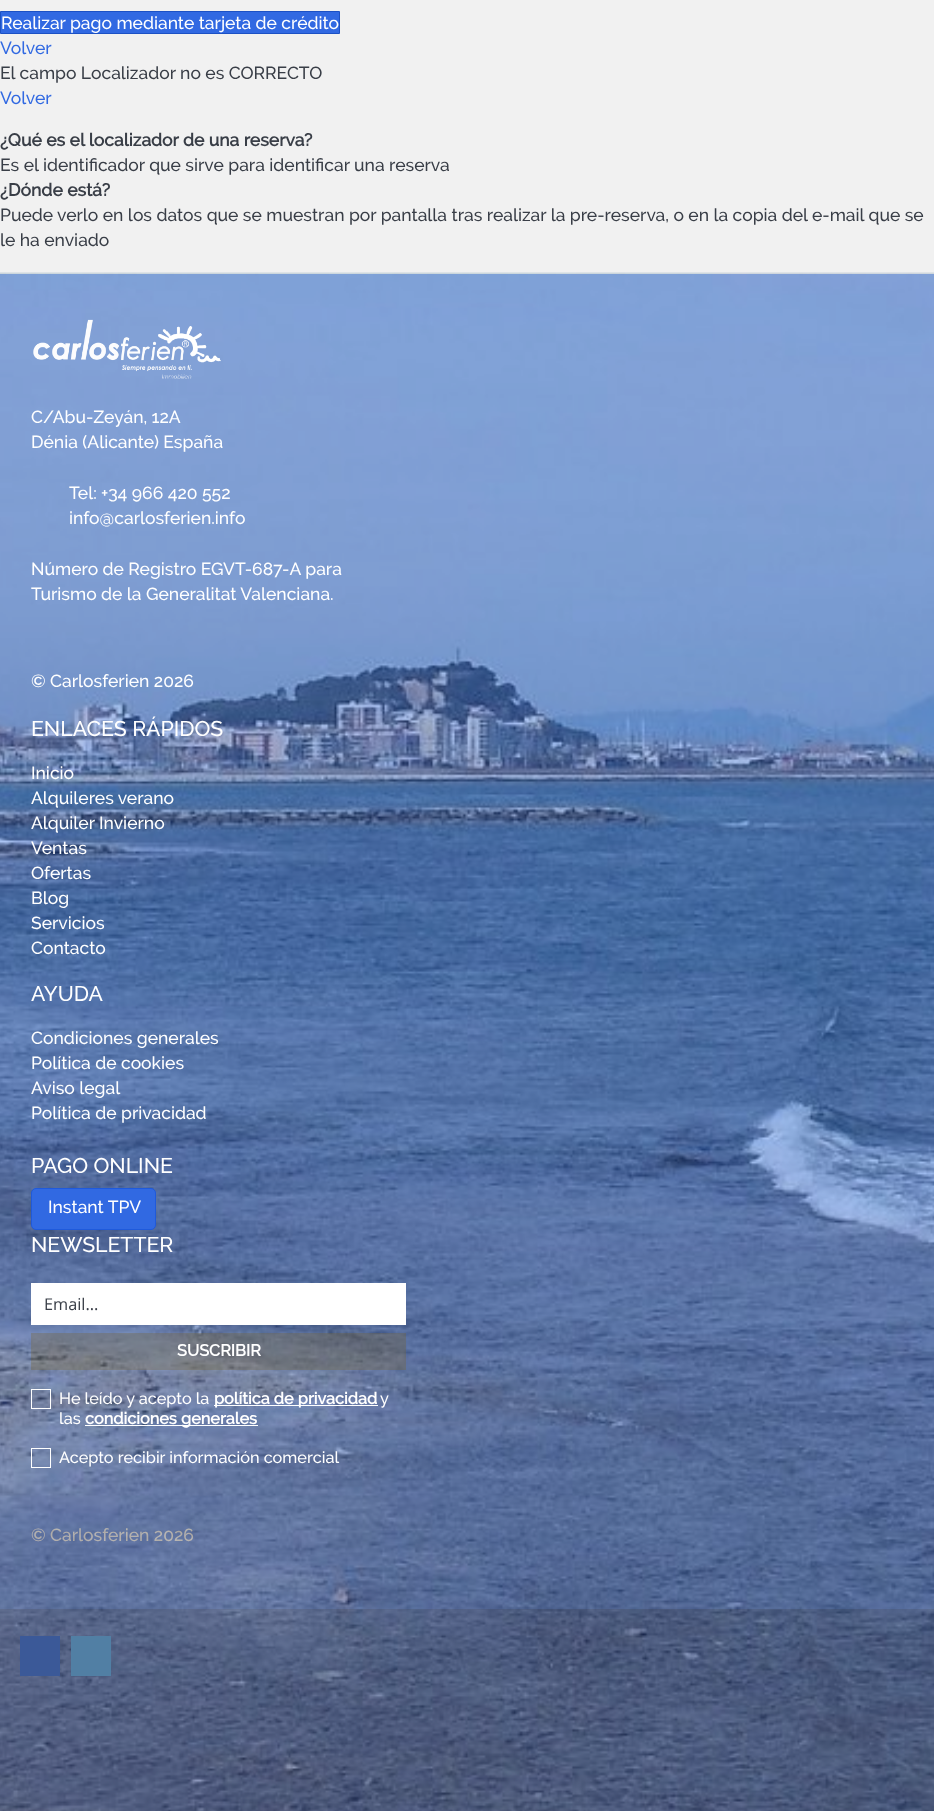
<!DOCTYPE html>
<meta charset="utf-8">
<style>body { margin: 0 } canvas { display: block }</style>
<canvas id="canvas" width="934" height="1811"></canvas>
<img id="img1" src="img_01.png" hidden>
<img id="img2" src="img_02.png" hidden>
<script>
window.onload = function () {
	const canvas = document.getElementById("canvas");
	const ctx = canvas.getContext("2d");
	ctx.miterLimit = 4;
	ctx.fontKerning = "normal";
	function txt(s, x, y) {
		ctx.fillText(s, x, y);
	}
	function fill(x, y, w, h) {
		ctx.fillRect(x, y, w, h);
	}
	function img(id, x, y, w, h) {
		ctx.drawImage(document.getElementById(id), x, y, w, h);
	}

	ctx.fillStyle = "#F1F1F1";
	fill(0, 0, 934, 1811);
	ctx.fillStyle = "#3169E2";
	ctx.beginPath();
	ctx.rect(0.5, 11.5, 339, 22);
	ctx.fill();
	ctx.strokeStyle = "#1C51C4";
	ctx.stroke();
	fill(0, 274, 934, 1335);
	ctx.fillStyle = "#2551B1";
	fill(0, 1609, 934, 202);
	ctx.font = "500 17.5px Raleway";
	ctx.fillStyle = "#FFFFFF";
	txt("Realizar pago mediante tarjeta de crédito", 1, 29);
	ctx.fillStyle = "#3169E2";
	txt("Volver", 0, 54);
	ctx.fillStyle = "#393E47";
	txt("El campo Localizador no es CORRECTO", 0, 79);
	ctx.fillStyle = "#3169E2";
	txt("Volver", 0, 104);
	ctx.font = "bold 17.5px Raleway";
	ctx.fillStyle = "#393E47";
	txt("¿Qué es el localizador de una reserva?", 0, 146);
	ctx.font = "500 17.5px Raleway";
	txt("Es el identificador que sirve para identificar una reserva", 0, 171);
	ctx.font = "bold 17.5px Raleway";
	txt("¿Dónde está?", 0, 196);
	ctx.font = "500 17.5px Raleway";
	txt("Puede verlo en los datos que se muestran por pantalla tras realizar la pre-reserva, o en la copia del e-mail que se", 0, 221);
	txt("le ha enviado", 0, 246);
	ctx.fillStyle = "#FFFFFF";
	txt("© Carlosferien 2026", 31, 1541);
	img("img1", 0, 272, 934, 1539);
	ctx.strokeStyle = "#FFFFFF";
	ctx.strokeRect(31.5, 1448.5, 19, 19);
	ctx.font = "500 16.25px Raleway";
	txt("Acepto recibir información comercial", 59, 1463);
	ctx.strokeRect(31.5, 1389.5, 19, 19);
	fill(85, 1425, 173, 1);
	ctx.font = "bold 16.25px Raleway";
	txt("condiciones generales", 85, 1424);
	ctx.font = "500 16.25px Raleway";
	txt("las", 59, 1424);
	txt("y", 380, 1404);
	fill(214, 1405, 164, 1);
	ctx.font = "bold 16.25px Raleway";
	txt("política de privacidad", 214, 1404);
	ctx.font = "500 16.25px Raleway";
	txt("He leído y acepto la", 59, 1404);
	ctx.fillStyle = "rgba(121, 98, 42, 0.3)";
	fill(31, 1333, 375, 37);
	ctx.font = "bold 16.25px Raleway";
	ctx.fillStyle = "#FFFFFF";
	txt("SUSCRIBIR", 177, 1356);
	fill(31, 1283, 375, 42);
	ctx.font = "16.25px Open Sans";
	ctx.fillStyle = "#393E47";
	txt("Email...", 44, 1310);
	ctx.font = "500 21.25px Raleway";
	ctx.fillStyle = "#FFFFFF";
	txt("NEWSLETTER", 31, 1252);
	ctx.fillStyle = "#3169E2";
	ctx.beginPath();
	ctx.roundRect(31.5, 1188.5, 124, 41, 4.5);
	ctx.fill();
	ctx.strokeStyle = "#1F5ADB";
	ctx.stroke();
	ctx.font = "500 17.5px Raleway";
	ctx.fillStyle = "#FFFFFF";
	txt("Instant TPV", 48, 1213);
	ctx.font = "500 21.25px Raleway";
	txt("PAGO ONLINE", 31, 1173);
	ctx.font = "500 17.5px Raleway";
	txt("Política de privacidad", 31, 1119);
	txt("Aviso legal", 31, 1094);
	txt("Política de cookies", 31, 1069);
	txt("Condiciones generales", 31, 1044);
	ctx.font = "500 21.25px Raleway";
	txt("AYUDA", 31, 1001);
	ctx.font = "500 17.5px Raleway";
	txt("Contacto", 31, 954);
	txt("Servicios", 31, 929);
	txt("Blog", 31, 904);
	txt("Ofertas", 31, 879);
	txt("Ventas", 31, 854);
	txt("Alquiler Invierno", 31, 829);
	txt("Alquileres verano", 31, 804);
	txt("Inicio", 31, 779);
	ctx.font = "500 21.25px Raleway";
	txt("ENLACES RÁPIDOS", 31, 736);
	ctx.font = "500 17.5px Raleway";
	txt("info@carlosferien.info", 69, 524);
	txt("Tel: +34 966 420 552", 69, 499);
	txt("© Carlosferien 2026", 31, 687);
	txt("Turismo de la Generalitat Valenciana.", 31, 600);
	txt("Número de Registro EGVT-687-A para", 31, 575);
	txt("Dénia (Alicante) España", 31, 448);
	txt("C/Abu-Zeyán, 12A", 31, 423);
	img("img2", 33, 319, 188, 60);
	ctx.fillStyle = "#3B5998";
	fill(20, 1636, 40, 40);
	ctx.fillStyle = "#517FA4";
	fill(71, 1636, 40, 40);
};
</script>
